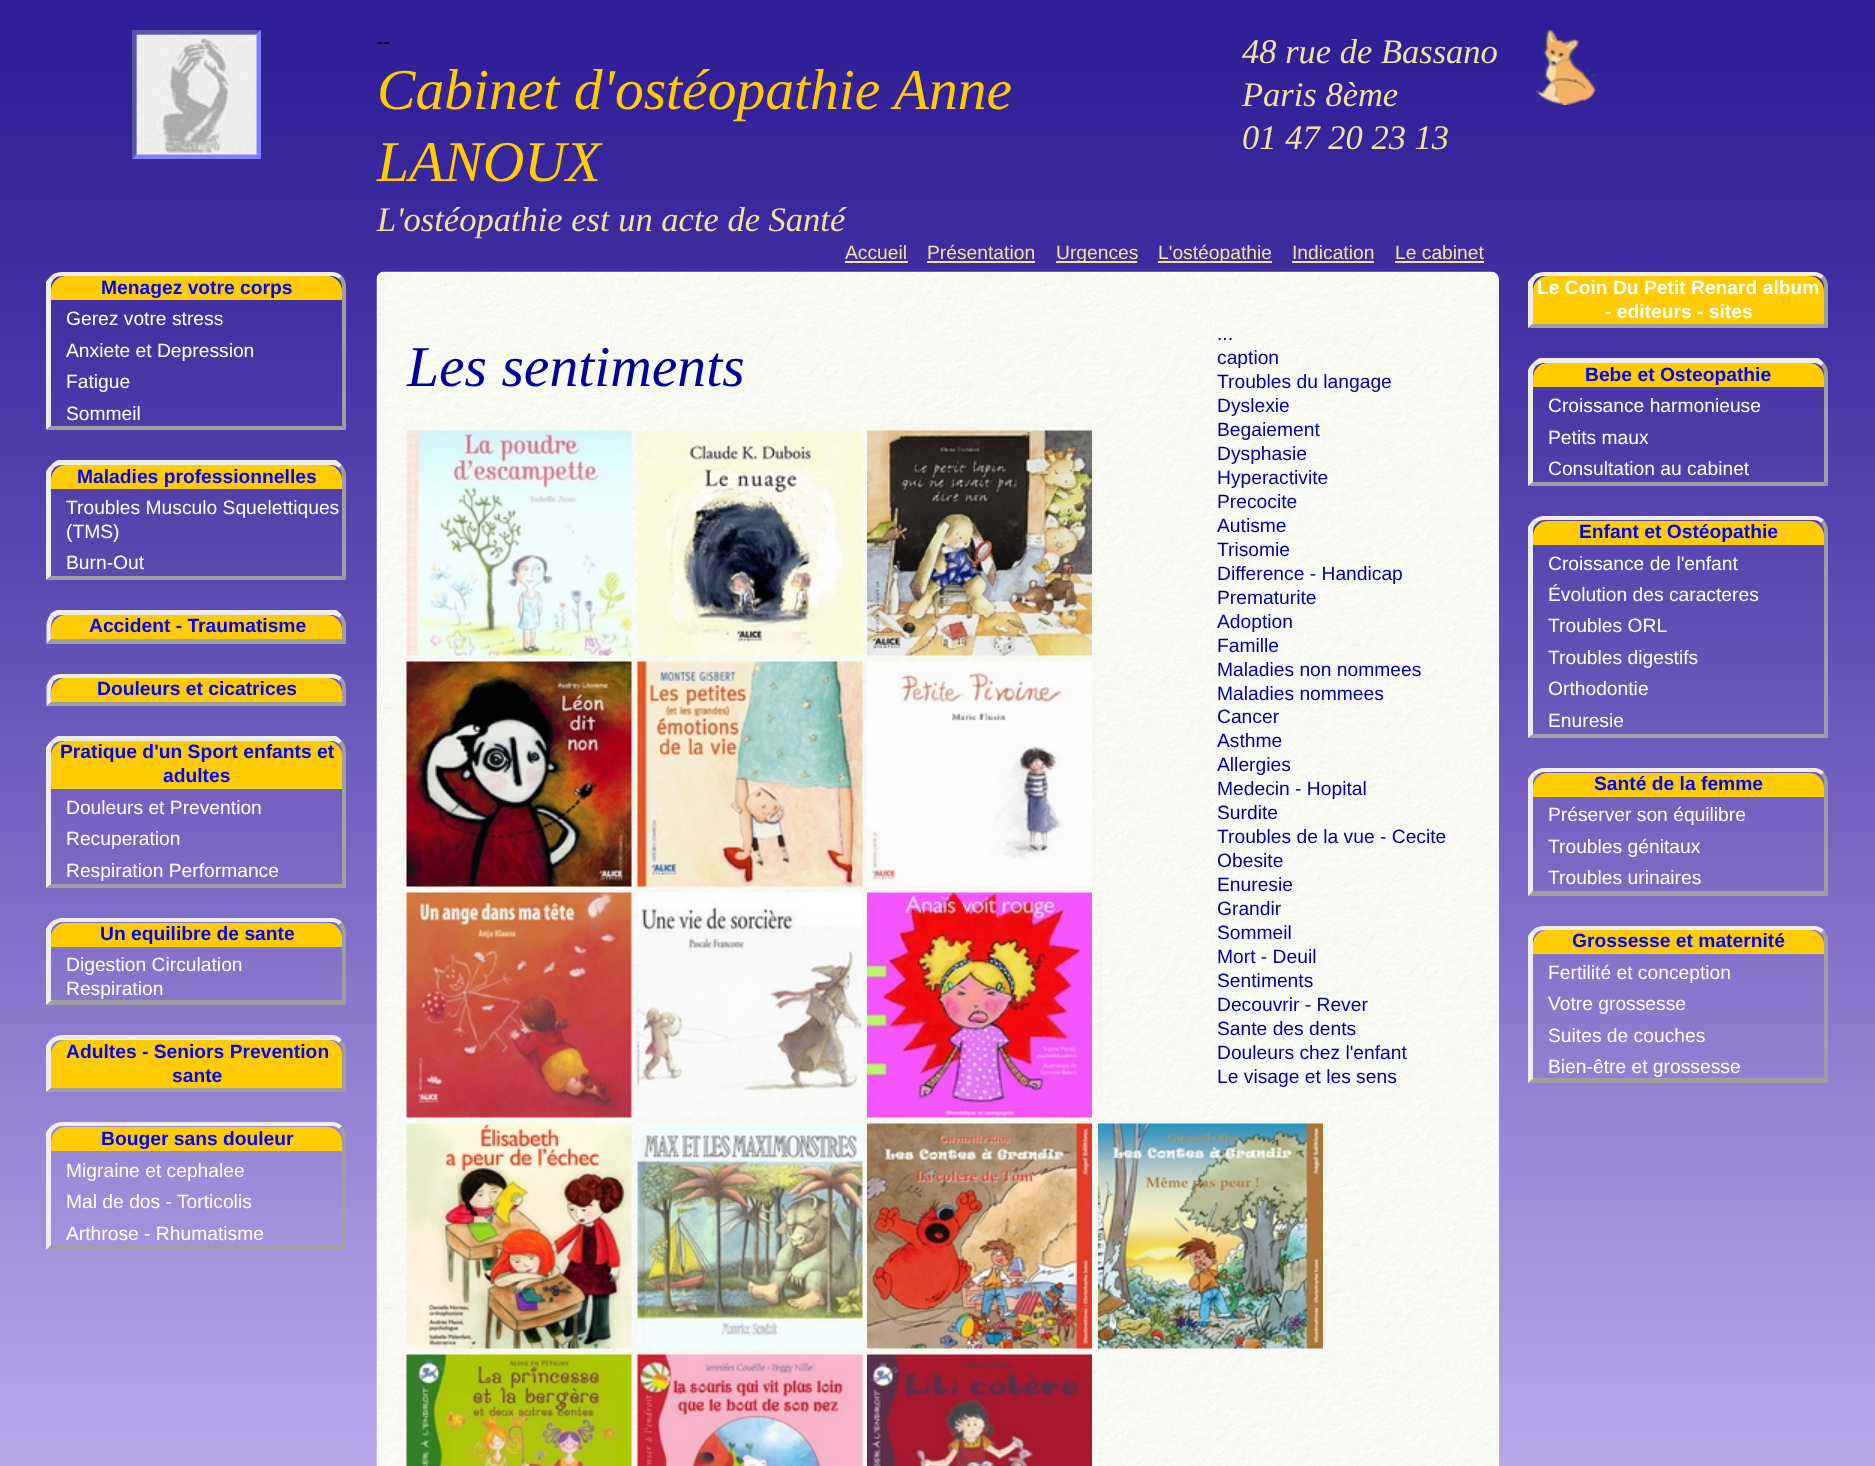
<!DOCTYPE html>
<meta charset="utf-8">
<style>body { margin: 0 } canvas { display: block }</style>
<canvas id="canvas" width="1875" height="1466"></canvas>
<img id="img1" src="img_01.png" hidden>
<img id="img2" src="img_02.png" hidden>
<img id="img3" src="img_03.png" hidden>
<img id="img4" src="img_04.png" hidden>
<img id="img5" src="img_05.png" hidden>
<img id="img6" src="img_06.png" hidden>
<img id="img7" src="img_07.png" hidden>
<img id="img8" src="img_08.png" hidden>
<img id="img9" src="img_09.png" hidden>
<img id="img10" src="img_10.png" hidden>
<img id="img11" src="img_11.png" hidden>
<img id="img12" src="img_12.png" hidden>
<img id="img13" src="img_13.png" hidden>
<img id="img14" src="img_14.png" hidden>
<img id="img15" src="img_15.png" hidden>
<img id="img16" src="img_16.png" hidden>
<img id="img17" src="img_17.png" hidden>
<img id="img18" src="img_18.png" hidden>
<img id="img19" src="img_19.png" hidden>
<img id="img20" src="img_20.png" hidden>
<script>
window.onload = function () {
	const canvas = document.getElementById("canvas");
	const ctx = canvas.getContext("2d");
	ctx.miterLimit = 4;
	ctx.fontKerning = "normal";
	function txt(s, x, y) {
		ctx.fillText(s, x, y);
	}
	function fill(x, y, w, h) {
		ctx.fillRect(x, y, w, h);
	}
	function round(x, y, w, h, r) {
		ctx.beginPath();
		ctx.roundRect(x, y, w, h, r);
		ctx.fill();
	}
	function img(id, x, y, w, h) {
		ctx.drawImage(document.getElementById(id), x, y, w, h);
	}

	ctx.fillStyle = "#FFFFFF";
	fill(0, 0, 1875, 1466);
	img("img1", 0, 0, 1875, 1466);
	ctx.fillStyle = "#5555AA";
	ctx.beginPath();
	ctx.moveTo(132, 30);
	ctx.lineTo(261, 30);
	ctx.lineTo(256, 34);
	ctx.lineTo(136, 34);
	ctx.closePath();
	ctx.fill();
	ctx.fillStyle = "#8080FF";
	ctx.beginPath();
	ctx.moveTo(261, 30);
	ctx.lineTo(261, 159);
	ctx.lineTo(256, 154);
	ctx.lineTo(256, 34);
	ctx.closePath();
	ctx.fill();
	ctx.beginPath();
	ctx.moveTo(261, 159);
	ctx.lineTo(132, 159);
	ctx.lineTo(136, 154);
	ctx.lineTo(256, 154);
	ctx.closePath();
	ctx.fill();
	ctx.fillStyle = "#5555AA";
	ctx.beginPath();
	ctx.moveTo(132, 159);
	ctx.lineTo(132, 30);
	ctx.lineTo(136, 34);
	ctx.lineTo(136, 154);
	ctx.closePath();
	ctx.fill();
	img("img2", 136, 34, 121, 121);
	ctx.fillStyle = "#F0E39E";
	fill(845, 261, 63, 2);
	fill(927, 261, 108, 2);
	fill(1056, 261, 81, 2);
	fill(1158, 261, 114, 2);
	fill(1292, 261, 82, 2);
	fill(1395, 261, 89, 2);
	img("img3", 1535, 30, 63, 75);
	ctx.fillStyle = "#EEEEEE";
	ctx.beginPath();
	ctx.moveTo(62, 272);
	ctx.bezierCurveTo(58, 272, 54, 273, 51, 276);
	ctx.lineTo(54, 279);
	ctx.bezierCurveTo(56, 277, 59, 276, 62, 276);
	ctx.lineTo(332, 276);
	ctx.bezierCurveTo(334, 276, 337, 277, 339, 279);
	ctx.lineTo(342, 276);
	ctx.bezierCurveTo(340, 274, 336, 272, 332, 272);
	ctx.closePath();
	ctx.fill();
	ctx.fillStyle = "#9F9F9F";
	ctx.beginPath();
	ctx.moveTo(346, 430);
	ctx.lineTo(346, 286);
	ctx.bezierCurveTo(346, 282, 344, 278, 342, 276);
	ctx.lineTo(339, 279);
	ctx.bezierCurveTo(341, 281, 342, 284, 342, 286);
	ctx.lineTo(342, 426);
	ctx.closePath();
	ctx.fill();
	ctx.beginPath();
	ctx.moveTo(346, 430);
	ctx.lineTo(342, 426);
	ctx.lineTo(51, 426);
	ctx.lineTo(47, 430);
	ctx.closePath();
	ctx.fill();
	ctx.fillStyle = "#EEEEEE";
	ctx.beginPath();
	ctx.moveTo(46, 282);
	ctx.bezierCurveTo(47, 280, 49, 278, 51, 276);
	ctx.lineTo(54, 279);
	ctx.bezierCurveTo(52, 281, 51, 284, 51, 286);
	ctx.lineTo(51, 426);
	ctx.lineTo(46, 430);
	ctx.closePath();
	ctx.fill();
	ctx.fillStyle = "#FFCC00";
	ctx.beginPath();
	ctx.roundRect(51, 276, 291, 24, [15, 15, 0, 0]);
	ctx.fill();
	ctx.fillStyle = "#EEEEEE";
	ctx.beginPath();
	ctx.moveTo(62, 465);
	ctx.bezierCurveTo(59, 465, 56, 466, 54, 468);
	ctx.lineTo(51, 465);
	ctx.bezierCurveTo(53, 463, 55, 461, 58, 460);
	ctx.lineTo(336, 460);
	ctx.bezierCurveTo(338, 461, 340, 463, 342, 465);
	ctx.lineTo(339, 468);
	ctx.bezierCurveTo(337, 466, 334, 465, 332, 465);
	ctx.closePath();
	ctx.fill();
	ctx.fillStyle = "#9F9F9F";
	ctx.beginPath();
	ctx.moveTo(342, 465);
	ctx.bezierCurveTo(345, 468, 346, 472, 346, 476);
	ctx.lineTo(346, 580);
	ctx.lineTo(342, 576);
	ctx.lineTo(342, 476);
	ctx.bezierCurveTo(342, 473, 341, 470, 339, 468);
	ctx.closePath();
	ctx.fill();
	ctx.beginPath();
	ctx.moveTo(346, 580);
	ctx.lineTo(342, 576);
	ctx.lineTo(51, 576);
	ctx.lineTo(47, 580);
	ctx.closePath();
	ctx.fill();
	ctx.fillStyle = "#EEEEEE";
	ctx.beginPath();
	ctx.moveTo(46, 472);
	ctx.bezierCurveTo(47, 469, 49, 467, 51, 465);
	ctx.lineTo(54, 468);
	ctx.bezierCurveTo(52, 470, 51, 473, 51, 476);
	ctx.lineTo(51, 576);
	ctx.lineTo(46, 580);
	ctx.closePath();
	ctx.fill();
	ctx.fillStyle = "#FFCC00";
	ctx.beginPath();
	ctx.roundRect(51, 465, 291, 24, [15, 15, 0, 0]);
	ctx.fill();
	ctx.fillStyle = "#EEEEEE";
	ctx.beginPath();
	ctx.moveTo(62, 615);
	ctx.bezierCurveTo(58, 615, 56, 616, 54, 618);
	ctx.lineTo(50, 614);
	ctx.bezierCurveTo(52, 613, 54, 611, 57, 610);
	ctx.lineTo(336, 610);
	ctx.bezierCurveTo(338, 611, 340, 613, 342, 615);
	ctx.lineTo(339, 618);
	ctx.bezierCurveTo(337, 616, 334, 615, 332, 615);
	ctx.closePath();
	ctx.fill();
	ctx.fillStyle = "#9F9F9F";
	ctx.beginPath();
	ctx.moveTo(342, 615);
	ctx.bezierCurveTo(344.5, 617.5, 346, 621.5, 346, 626);
	ctx.lineTo(346, 643);
	ctx.lineTo(342, 639);
	ctx.lineTo(342, 626);
	ctx.bezierCurveTo(342, 623, 340.5, 620, 339, 618);
	ctx.closePath();
	ctx.fill();
	ctx.beginPath();
	ctx.moveTo(346, 643);
	ctx.lineTo(346, 644);
	ctx.lineTo(46, 644);
	ctx.lineTo(51, 639);
	ctx.lineTo(342, 639);
	ctx.closePath();
	ctx.fill();
	ctx.fillStyle = "#EEEEEE";
	ctx.beginPath();
	ctx.moveTo(46.5, 643.5);
	ctx.lineTo(46.5, 624);
	ctx.bezierCurveTo(47, 620.5, 48.5, 617, 50.5, 614.5);
	ctx.lineTo(54, 618);
	ctx.bezierCurveTo(49.5, 623.5, 51, 632.5, 51, 639);
	ctx.closePath();
	ctx.fill();
	ctx.fillStyle = "#FFCC00";
	ctx.beginPath();
	ctx.roundRect(51, 615, 291, 24, [15, 15, 0, 0]);
	ctx.fill();
	ctx.fillStyle = "#EEEEEE";
	ctx.beginPath();
	ctx.moveTo(62, 674);
	ctx.bezierCurveTo(57, 674, 53, 675, 51, 678);
	ctx.lineTo(54, 681);
	ctx.bezierCurveTo(56, 679, 58, 678, 62, 678);
	ctx.lineTo(332, 678);
	ctx.bezierCurveTo(334, 678, 337, 679, 339, 681);
	ctx.lineTo(342, 678);
	ctx.bezierCurveTo(340, 676, 336, 674, 332, 674);
	ctx.closePath();
	ctx.fill();
	ctx.fillStyle = "#9F9F9F";
	ctx.beginPath();
	ctx.moveTo(346, 706);
	ctx.lineTo(346, 688);
	ctx.bezierCurveTo(346, 684, 344.5, 680.5, 342, 678);
	ctx.lineTo(339, 681);
	ctx.bezierCurveTo(341, 683, 342, 685.5, 342, 688);
	ctx.lineTo(342, 702);
	ctx.closePath();
	ctx.fill();
	ctx.beginPath();
	ctx.moveTo(346, 706);
	ctx.lineTo(342, 702);
	ctx.lineTo(51, 702);
	ctx.lineTo(47, 706);
	ctx.closePath();
	ctx.fill();
	ctx.fillStyle = "#EEEEEE";
	ctx.beginPath();
	ctx.moveTo(46.5, 687);
	ctx.bezierCurveTo(47, 683.5, 48.5, 680.5, 51, 678);
	ctx.lineTo(54, 681);
	ctx.bezierCurveTo(49.5, 686.5, 51, 695.5, 51, 702);
	ctx.lineTo(47, 706);
	ctx.lineTo(46.5, 706);
	ctx.closePath();
	ctx.fill();
	ctx.fillStyle = "#FFCC00";
	ctx.beginPath();
	ctx.roundRect(51, 678, 291, 24, [15, 15, 0, 0]);
	ctx.fill();
	ctx.fillStyle = "#EEEEEE";
	ctx.beginPath();
	ctx.moveTo(62, 741);
	ctx.bezierCurveTo(59, 741, 56, 742, 54, 744);
	ctx.lineTo(51, 741);
	ctx.bezierCurveTo(53, 739, 55, 737, 58, 736);
	ctx.lineTo(336, 736);
	ctx.bezierCurveTo(338, 737, 340, 739, 342, 741);
	ctx.lineTo(339, 744);
	ctx.bezierCurveTo(337, 742, 334, 741, 332, 741);
	ctx.closePath();
	ctx.fill();
	ctx.fillStyle = "#9F9F9F";
	ctx.beginPath();
	ctx.moveTo(342, 741);
	ctx.bezierCurveTo(345, 744, 346, 748, 346, 752);
	ctx.lineTo(346, 888);
	ctx.lineTo(342, 884);
	ctx.lineTo(342, 752);
	ctx.bezierCurveTo(342, 749, 341, 746, 339, 744);
	ctx.closePath();
	ctx.fill();
	ctx.beginPath();
	ctx.moveTo(46, 888);
	ctx.lineTo(346, 888);
	ctx.lineTo(342, 884);
	ctx.lineTo(51, 884);
	ctx.closePath();
	ctx.fill();
	ctx.fillStyle = "#EEEEEE";
	ctx.beginPath();
	ctx.moveTo(46, 888);
	ctx.lineTo(46, 748);
	ctx.bezierCurveTo(47, 745, 49, 743, 51, 741);
	ctx.lineTo(54, 744);
	ctx.bezierCurveTo(52, 746, 51, 749, 51, 752);
	ctx.lineTo(51, 884);
	ctx.closePath();
	ctx.fill();
	ctx.fillStyle = "#FFCC00";
	ctx.beginPath();
	ctx.roundRect(51, 741, 291, 48, [15, 15, 0, 0]);
	ctx.fill();
	ctx.fillStyle = "#EEEEEE";
	ctx.beginPath();
	ctx.moveTo(62, 918);
	ctx.bezierCurveTo(58, 918, 54, 920, 51, 922);
	ctx.lineTo(54, 926);
	ctx.bezierCurveTo(56, 923, 59, 922, 62, 922);
	ctx.lineTo(332, 922);
	ctx.bezierCurveTo(335, 922, 337, 923, 339, 925);
	ctx.lineTo(342, 922);
	ctx.bezierCurveTo(340, 920, 336, 918, 332, 918);
	ctx.closePath();
	ctx.fill();
	ctx.fillStyle = "#9F9F9F";
	ctx.beginPath();
	ctx.moveTo(342, 922);
	ctx.bezierCurveTo(344, 925, 346, 929, 346, 933);
	ctx.lineTo(346, 1004);
	ctx.lineTo(342, 1000);
	ctx.lineTo(342, 933);
	ctx.bezierCurveTo(342, 930, 341, 927, 339, 925);
	ctx.closePath();
	ctx.fill();
	ctx.beginPath();
	ctx.moveTo(46, 1005);
	ctx.lineTo(346, 1005);
	ctx.lineTo(346, 1004);
	ctx.lineTo(342, 1000);
	ctx.lineTo(52, 1000);
	ctx.closePath();
	ctx.fill();
	ctx.fillStyle = "#EEEEEE";
	ctx.beginPath();
	ctx.moveTo(46, 1005);
	ctx.lineTo(46, 929);
	ctx.bezierCurveTo(47, 927, 49, 924, 51, 922);
	ctx.lineTo(54, 926);
	ctx.bezierCurveTo(52, 927, 51, 930, 51, 933);
	ctx.lineTo(51, 1000);
	ctx.lineTo(52, 1000);
	ctx.closePath();
	ctx.fill();
	ctx.fillStyle = "#FFCC00";
	ctx.beginPath();
	ctx.roundRect(51, 923, 291, 24, [15, 15, 0, 0]);
	ctx.fill();
	ctx.fillStyle = "#EEEEEE";
	ctx.beginPath();
	ctx.moveTo(62, 1035);
	ctx.bezierCurveTo(58, 1035, 54, 1037, 51, 1039);
	ctx.lineTo(54, 1043);
	ctx.bezierCurveTo(56, 1041, 59, 1040, 62, 1040);
	ctx.lineTo(332, 1040);
	ctx.bezierCurveTo(334, 1040, 337, 1041, 339, 1043);
	ctx.lineTo(342, 1040);
	ctx.bezierCurveTo(340, 1037, 336, 1035, 332, 1035);
	ctx.closePath();
	ctx.fill();
	ctx.fillStyle = "#9F9F9F";
	ctx.beginPath();
	ctx.moveTo(342, 1040);
	ctx.bezierCurveTo(344, 1042, 346, 1046, 346, 1050);
	ctx.lineTo(346, 1092);
	ctx.lineTo(342, 1088);
	ctx.lineTo(342, 1050);
	ctx.bezierCurveTo(342, 1047, 341, 1044, 339, 1043);
	ctx.closePath();
	ctx.fill();
	ctx.beginPath();
	ctx.moveTo(46, 1092);
	ctx.lineTo(346, 1092);
	ctx.lineTo(342, 1088);
	ctx.lineTo(51, 1088);
	ctx.closePath();
	ctx.fill();
	ctx.fillStyle = "#EEEEEE";
	ctx.beginPath();
	ctx.moveTo(46, 1092);
	ctx.lineTo(46, 1046);
	ctx.bezierCurveTo(47, 1044, 49, 1041, 51, 1039);
	ctx.lineTo(54, 1043);
	ctx.bezierCurveTo(52, 1044, 51, 1047, 51, 1050);
	ctx.lineTo(51, 1088);
	ctx.closePath();
	ctx.fill();
	ctx.fillStyle = "#FFCC00";
	ctx.beginPath();
	ctx.roundRect(51, 1040, 291, 48, [15, 15, 0, 0]);
	ctx.fill();
	ctx.fillStyle = "#EEEEEE";
	ctx.beginPath();
	ctx.moveTo(62, 1122);
	ctx.bezierCurveTo(58, 1122, 54, 1124, 51, 1126);
	ctx.lineTo(54, 1130);
	ctx.bezierCurveTo(56, 1127, 59, 1126, 62, 1126);
	ctx.lineTo(332, 1126);
	ctx.bezierCurveTo(335, 1126, 337, 1127, 339, 1129);
	ctx.lineTo(342, 1126);
	ctx.bezierCurveTo(340, 1124, 336, 1122, 332, 1122);
	ctx.closePath();
	ctx.fill();
	ctx.fillStyle = "#9F9F9F";
	ctx.beginPath();
	ctx.moveTo(342, 1126);
	ctx.bezierCurveTo(344, 1129, 346, 1133, 346, 1137);
	ctx.lineTo(346, 1249);
	ctx.lineTo(342, 1245);
	ctx.lineTo(342, 1137);
	ctx.bezierCurveTo(342, 1134, 341, 1131, 339, 1129);
	ctx.closePath();
	ctx.fill();
	ctx.beginPath();
	ctx.moveTo(346, 1249);
	ctx.lineTo(346, 1250);
	ctx.lineTo(46, 1250);
	ctx.lineTo(51, 1245);
	ctx.lineTo(342, 1245);
	ctx.closePath();
	ctx.fill();
	ctx.fillStyle = "#EEEEEE";
	ctx.beginPath();
	ctx.moveTo(46, 1250);
	ctx.lineTo(46, 1133);
	ctx.bezierCurveTo(47, 1131, 49, 1128, 51, 1126);
	ctx.lineTo(54, 1130);
	ctx.bezierCurveTo(52, 1131, 51, 1134, 51, 1137);
	ctx.lineTo(51, 1245);
	ctx.closePath();
	ctx.fill();
	ctx.fillStyle = "#FFCC00";
	ctx.beginPath();
	ctx.roundRect(51, 1127, 291, 24, [15, 15, 0, 0]);
	ctx.fill();
	ctx.fillStyle = "#FFFFFF";
	round(377, 272, 1122, 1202, 8);
	img("img4", 376, 271, 1123, 1195);
	img("img5", 406, 430, 226, 226);
	img("img6", 637, 430, 226, 226);
	img("img7", 867, 430, 225, 226);
	img("img8", 406, 661, 226, 226);
	img("img9", 637, 661, 226, 226);
	img("img10", 867, 661, 225, 226);
	img("img11", 406, 892, 226, 226);
	img("img12", 637, 892, 226, 226);
	img("img13", 867, 892, 225, 226);
	img("img14", 406, 1123, 226, 226);
	img("img15", 637, 1123, 226, 226);
	img("img16", 867, 1123, 225, 226);
	img("img17", 1098, 1123, 225, 226);
	img("img18", 406, 1354, 226, 112);
	img("img19", 637, 1354, 226, 112);
	img("img20", 867, 1354, 225, 112);
	ctx.fillStyle = "#EEEEEE";
	ctx.beginPath();
	ctx.moveTo(1544, 272);
	ctx.bezierCurveTo(1540, 272, 1536, 273, 1533, 276);
	ctx.lineTo(1536, 279);
	ctx.bezierCurveTo(1538, 277, 1541, 276, 1544, 276);
	ctx.lineTo(1814, 276);
	ctx.bezierCurveTo(1816, 276, 1819, 277, 1821, 279);
	ctx.lineTo(1824, 276);
	ctx.bezierCurveTo(1822, 274, 1818, 272, 1814, 272);
	ctx.closePath();
	ctx.fill();
	ctx.fillStyle = "#9F9F9F";
	ctx.beginPath();
	ctx.moveTo(1828, 328);
	ctx.lineTo(1828, 286);
	ctx.bezierCurveTo(1828, 282, 1826, 278, 1824, 276);
	ctx.lineTo(1821, 279);
	ctx.bezierCurveTo(1823, 281, 1824, 284, 1824, 286);
	ctx.lineTo(1824, 324);
	ctx.closePath();
	ctx.fill();
	ctx.beginPath();
	ctx.moveTo(1828, 328);
	ctx.lineTo(1824, 324);
	ctx.lineTo(1533, 324);
	ctx.lineTo(1529, 328);
	ctx.closePath();
	ctx.fill();
	ctx.fillStyle = "#EEEEEE";
	ctx.beginPath();
	ctx.moveTo(1528, 282);
	ctx.bezierCurveTo(1529, 280, 1531, 278, 1533, 276);
	ctx.lineTo(1536, 279);
	ctx.bezierCurveTo(1534, 281, 1533, 284, 1533, 286);
	ctx.lineTo(1533, 324);
	ctx.lineTo(1528, 328);
	ctx.closePath();
	ctx.fill();
	ctx.fillStyle = "#FFCC00";
	ctx.beginPath();
	ctx.roundRect(1533, 276, 291, 48, [15, 15, 0, 0]);
	ctx.fill();
	ctx.fillStyle = "#EEEEEE";
	ctx.beginPath();
	ctx.moveTo(1544, 363);
	ctx.bezierCurveTo(1541, 363, 1538, 364, 1536, 366);
	ctx.lineTo(1533, 363);
	ctx.bezierCurveTo(1535, 361, 1537, 359, 1540, 358);
	ctx.lineTo(1818, 358);
	ctx.bezierCurveTo(1820, 359, 1822, 361, 1824, 363);
	ctx.lineTo(1821, 366);
	ctx.bezierCurveTo(1819, 364, 1816, 363, 1814, 363);
	ctx.closePath();
	ctx.fill();
	ctx.fillStyle = "#9F9F9F";
	ctx.beginPath();
	ctx.moveTo(1824, 363);
	ctx.bezierCurveTo(1827, 366, 1828, 370, 1828, 374);
	ctx.lineTo(1828, 486);
	ctx.lineTo(1824, 482);
	ctx.lineTo(1824, 374);
	ctx.bezierCurveTo(1824, 371, 1823, 368, 1821, 366);
	ctx.closePath();
	ctx.fill();
	ctx.beginPath();
	ctx.moveTo(1528, 486);
	ctx.lineTo(1828, 486);
	ctx.lineTo(1824, 482);
	ctx.lineTo(1533, 482);
	ctx.closePath();
	ctx.fill();
	ctx.fillStyle = "#EEEEEE";
	ctx.beginPath();
	ctx.moveTo(1528, 486);
	ctx.lineTo(1528, 370);
	ctx.bezierCurveTo(1529, 367, 1531, 365, 1533, 363);
	ctx.lineTo(1536, 366);
	ctx.bezierCurveTo(1534, 368, 1533, 371, 1533, 374);
	ctx.lineTo(1533, 482);
	ctx.closePath();
	ctx.fill();
	ctx.fillStyle = "#FFCC00";
	ctx.beginPath();
	ctx.roundRect(1533, 363, 291, 24, [15, 15, 0, 0]);
	ctx.fill();
	ctx.fillStyle = "#EEEEEE";
	ctx.beginPath();
	ctx.moveTo(1544, 516);
	ctx.bezierCurveTo(1540, 516, 1536, 518, 1533, 520);
	ctx.lineTo(1536, 524);
	ctx.bezierCurveTo(1538, 521, 1541, 520, 1544, 520);
	ctx.lineTo(1814, 520);
	ctx.bezierCurveTo(1817, 520, 1819, 521, 1821, 523);
	ctx.lineTo(1824, 520);
	ctx.bezierCurveTo(1822, 518, 1818, 516, 1814, 516);
	ctx.closePath();
	ctx.fill();
	ctx.fillStyle = "#9F9F9F";
	ctx.beginPath();
	ctx.moveTo(1824, 520);
	ctx.bezierCurveTo(1826, 523, 1828, 527, 1828, 531);
	ctx.lineTo(1828, 738);
	ctx.lineTo(1824, 734);
	ctx.lineTo(1824, 531);
	ctx.bezierCurveTo(1824, 528, 1823, 525, 1821, 523);
	ctx.closePath();
	ctx.fill();
	ctx.beginPath();
	ctx.moveTo(1528, 738);
	ctx.lineTo(1828, 738);
	ctx.lineTo(1824, 734);
	ctx.lineTo(1533, 734);
	ctx.closePath();
	ctx.fill();
	ctx.fillStyle = "#EEEEEE";
	ctx.beginPath();
	ctx.moveTo(1528, 738);
	ctx.lineTo(1528, 527);
	ctx.bezierCurveTo(1529, 525, 1531, 522, 1533, 520);
	ctx.lineTo(1536, 524);
	ctx.bezierCurveTo(1534, 525, 1533, 528, 1533, 531);
	ctx.lineTo(1533, 734);
	ctx.closePath();
	ctx.fill();
	ctx.fillStyle = "#FFCC00";
	ctx.beginPath();
	ctx.roundRect(1533, 521, 291, 24, [15, 15, 0, 0]);
	ctx.fill();
	ctx.fillStyle = "#EEEEEE";
	ctx.beginPath();
	ctx.moveTo(1544, 768);
	ctx.bezierCurveTo(1540, 768, 1536, 770, 1533, 772);
	ctx.lineTo(1536, 776);
	ctx.bezierCurveTo(1538, 773, 1541, 772, 1544, 772);
	ctx.lineTo(1814, 772);
	ctx.bezierCurveTo(1817, 772, 1819, 773, 1821, 775);
	ctx.lineTo(1824, 772);
	ctx.bezierCurveTo(1822, 770, 1818, 768, 1814, 768);
	ctx.closePath();
	ctx.fill();
	ctx.fillStyle = "#9F9F9F";
	ctx.beginPath();
	ctx.moveTo(1824, 772);
	ctx.bezierCurveTo(1826, 775, 1828, 779, 1828, 783);
	ctx.lineTo(1828, 895);
	ctx.lineTo(1824, 891);
	ctx.lineTo(1824, 783);
	ctx.bezierCurveTo(1824, 780, 1823, 777, 1821, 775);
	ctx.closePath();
	ctx.fill();
	ctx.beginPath();
	ctx.moveTo(1828, 895);
	ctx.lineTo(1828, 896);
	ctx.lineTo(1528, 896);
	ctx.lineTo(1533, 891);
	ctx.lineTo(1824, 891);
	ctx.closePath();
	ctx.fill();
	ctx.fillStyle = "#EEEEEE";
	ctx.beginPath();
	ctx.moveTo(1528, 896);
	ctx.lineTo(1528, 779);
	ctx.bezierCurveTo(1529, 777, 1531, 774, 1533, 772);
	ctx.lineTo(1536, 776);
	ctx.bezierCurveTo(1534, 777, 1533, 780, 1533, 783);
	ctx.lineTo(1533, 891);
	ctx.closePath();
	ctx.fill();
	ctx.fillStyle = "#FFCC00";
	ctx.beginPath();
	ctx.roundRect(1533, 773, 291, 24, [15, 15, 0, 0]);
	ctx.fill();
	ctx.fillStyle = "#EEEEEE";
	ctx.beginPath();
	ctx.moveTo(1544, 926);
	ctx.bezierCurveTo(1540, 926, 1536, 927, 1533, 930);
	ctx.lineTo(1536, 933);
	ctx.bezierCurveTo(1538, 931, 1541, 930, 1544, 930);
	ctx.lineTo(1814, 930);
	ctx.bezierCurveTo(1816, 930, 1819, 931, 1821, 933);
	ctx.lineTo(1824, 930);
	ctx.bezierCurveTo(1822, 928, 1818, 926, 1814, 926);
	ctx.closePath();
	ctx.fill();
	ctx.fillStyle = "#9F9F9F";
	ctx.beginPath();
	ctx.moveTo(1828, 1082);
	ctx.lineTo(1828, 940);
	ctx.bezierCurveTo(1828, 936, 1826, 932, 1824, 930);
	ctx.lineTo(1821, 933);
	ctx.bezierCurveTo(1823, 935, 1824, 938, 1824, 940);
	ctx.lineTo(1824, 1078);
	ctx.closePath();
	ctx.fill();
	ctx.beginPath();
	ctx.moveTo(1528, 1083);
	ctx.lineTo(1828, 1083);
	ctx.lineTo(1828, 1082);
	ctx.lineTo(1824, 1078);
	ctx.lineTo(1534, 1078);
	ctx.closePath();
	ctx.fill();
	ctx.fillStyle = "#EEEEEE";
	ctx.beginPath();
	ctx.moveTo(1528, 1083);
	ctx.lineTo(1534, 1078);
	ctx.lineTo(1533, 1078);
	ctx.lineTo(1533, 940);
	ctx.bezierCurveTo(1533, 938, 1534, 935, 1536, 933);
	ctx.lineTo(1533, 930);
	ctx.bezierCurveTo(1531, 932, 1529, 934, 1528, 936);
	ctx.closePath();
	ctx.fill();
	ctx.fillStyle = "#FFCC00";
	ctx.beginPath();
	ctx.roundRect(1533, 930, 291, 24, [15, 15, 0, 0]);
	ctx.fill();
	ctx.font = "19.25px Liberation Sans";
	ctx.fillStyle = "#000000";
	txt("--", 377, 48);
	ctx.font = "italic 34.5px Liberation Serif";
	ctx.fillStyle = "#F0E39E";
	txt("48 rue de Bassano", 1242, 63);
	txt("Paris 8ème", 1242, 106);
	txt("01 47 20 23 13", 1242, 149);
	ctx.font = "italic 57.6px Liberation Serif";
	ctx.fillStyle = "#FFCC00";
	txt("Cabinet d'ostéopathie Anne", 377, 109);
	txt("LANOUX", 377, 181);
	ctx.font = "italic 34.5px Liberation Serif";
	ctx.fillStyle = "#F0E39E";
	txt("L'ostéopathie est un acte de Santé", 377, 231);
	ctx.font = "19.25px Liberation Sans";
	txt("Accueil", 845, 259);
	txt("Présentation", 927, 259);
	txt("Urgences", 1056, 259);
	txt("L'ostéopathie", 1158, 259);
	txt("Indication", 1292, 259);
	txt("Le cabinet", 1395, 259);
	ctx.font = "bold 19.25px Liberation Sans";
	ctx.fillStyle = "#0000FF";
	txt("Menagez votre corps", 101, 294);
	ctx.font = "19.25px Liberation Sans";
	ctx.fillStyle = "#FFFFFF";
	txt("Gerez votre stress", 66, 325);
	txt("Anxiete et Depression", 66, 357);
	txt("Fatigue", 66, 388);
	txt("Sommeil", 66, 420);
	ctx.font = "bold 19.25px Liberation Sans";
	ctx.fillStyle = "#0000FF";
	txt("Maladies professionnelles", 77, 483);
	ctx.font = "19.25px Liberation Sans";
	ctx.fillStyle = "#FFFFFF";
	txt("Troubles Musculo Squelettiques", 66, 514);
	txt("(TMS)", 66, 538);
	txt("Burn-Out", 66, 569);
	ctx.font = "bold 19.25px Liberation Sans";
	ctx.fillStyle = "#0000FF";
	txt("Accident - Traumatisme", 89, 632);
	txt("Douleurs et cicatrices", 97, 695);
	txt("Pratique d'un Sport enfants et", 60, 758);
	txt("adultes", 163, 782);
	ctx.font = "19.25px Liberation Sans";
	ctx.fillStyle = "#FFFFFF";
	txt("Douleurs et Prevention", 66, 814);
	txt("Recuperation", 66, 845);
	txt("Respiration Performance", 66, 877);
	ctx.font = "bold 19.25px Liberation Sans";
	ctx.fillStyle = "#0000FF";
	txt("Un equilibre de sante", 100, 940);
	ctx.font = "19.25px Liberation Sans";
	ctx.fillStyle = "#FFFFFF";
	txt("Digestion Circulation", 66, 971);
	txt("Respiration", 66, 995);
	ctx.font = "bold 19.25px Liberation Sans";
	ctx.fillStyle = "#0000FF";
	txt("Adultes - Seniors Prevention", 66, 1058);
	txt("sante", 172, 1082);
	txt("Bouger sans douleur", 101, 1145);
	ctx.font = "19.25px Liberation Sans";
	ctx.fillStyle = "#FFFFFF";
	txt("Migraine et cephalee", 66, 1177);
	txt("Mal de dos - Torticolis", 66, 1208);
	txt("Arthrose - Rhumatisme", 66, 1240);
	ctx.font = "italic 57.6px Liberation Serif";
	ctx.fillStyle = "#000099";
	txt("Les sentiments", 407, 386);
	ctx.font = "19.25px Liberation Sans";
	txt("...", 1217, 340);
	txt("caption", 1217, 364);
	txt("Troubles du langage", 1217, 388);
	txt("Dyslexie", 1217, 412);
	txt("Begaiement", 1217, 436);
	txt("Dysphasie", 1217, 460);
	txt("Hyperactivite", 1217, 484);
	txt("Precocite", 1217, 508);
	txt("Autisme", 1217, 532);
	txt("Trisomie", 1217, 556);
	txt("Difference - Handicap", 1217, 580);
	txt("Prematurite", 1217, 604);
	txt("Adoption", 1217, 628);
	txt("Famille", 1217, 652);
	txt("Maladies non nommees", 1217, 676);
	txt("Maladies nommees", 1217, 700);
	txt("Cancer", 1217, 723);
	txt("Asthme", 1217, 747);
	txt("Allergies", 1217, 771);
	txt("Medecin - Hopital", 1217, 795);
	txt("Surdite", 1217, 819);
	txt("Troubles de la vue - Cecite", 1217, 843);
	txt("Obesite", 1217, 867);
	txt("Enuresie", 1217, 891);
	txt("Grandir", 1217, 915);
	txt("Sommeil", 1217, 939);
	txt("Mort - Deuil", 1217, 963);
	txt("Sentiments", 1217, 987);
	txt("Decouvrir - Rever", 1217, 1011);
	txt("Sante des dents", 1217, 1035);
	txt("Douleurs chez l'enfant", 1217, 1059);
	txt("Le visage et les sens", 1217, 1083);
	ctx.font = "bold 19.25px Liberation Sans";
	ctx.fillStyle = "#FFFFFF";
	txt("Le Coin Du Petit Renard album", 1537, 294);
	txt("- editeurs - sites", 1605, 318);
	ctx.fillStyle = "#0000FF";
	txt("Bebe et Osteopathie", 1585, 381);
	ctx.font = "19.25px Liberation Sans";
	ctx.fillStyle = "#FFFFFF";
	txt("Croissance harmonieuse", 1548, 412);
	txt("Petits maux", 1548, 444);
	txt("Consultation au cabinet", 1548, 475);
	ctx.font = "bold 19.25px Liberation Sans";
	ctx.fillStyle = "#0000FF";
	txt("Enfant et Ostéopathie", 1579, 538);
	ctx.font = "19.25px Liberation Sans";
	ctx.fillStyle = "#FFFFFF";
	txt("Croissance de l'enfant", 1548, 570);
	txt("Évolution des caracteres", 1548, 601);
	txt("Troubles ORL", 1548, 632);
	txt("Troubles digestifs", 1548, 664);
	txt("Orthodontie", 1548, 695);
	txt("Enuresie", 1548, 727);
	ctx.font = "bold 19.25px Liberation Sans";
	ctx.fillStyle = "#0000FF";
	txt("Santé de la femme", 1594, 790);
	ctx.font = "19.25px Liberation Sans";
	ctx.fillStyle = "#FFFFFF";
	txt("Préserver son équilibre", 1548, 821);
	txt("Troubles génitaux", 1548, 853);
	txt("Troubles urinaires", 1548, 884);
	ctx.font = "bold 19.25px Liberation Sans";
	ctx.fillStyle = "#0000FF";
	txt("Grossesse et maternité", 1572, 947);
	ctx.font = "19.25px Liberation Sans";
	ctx.fillStyle = "#FFFFFF";
	txt("Fertilité et conception", 1548, 979);
	txt("Votre grossesse", 1548, 1010);
	txt("Suites de couches", 1548, 1042);
	txt("Bien-être et grossesse", 1548, 1073);
};
</script>
